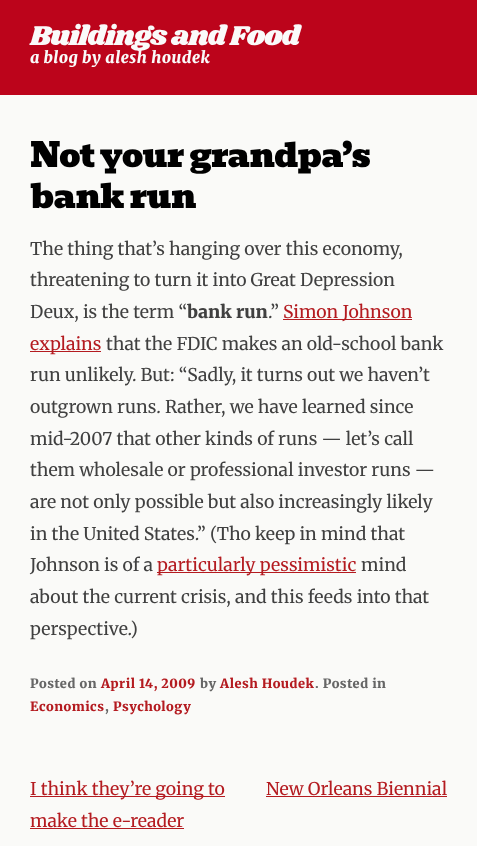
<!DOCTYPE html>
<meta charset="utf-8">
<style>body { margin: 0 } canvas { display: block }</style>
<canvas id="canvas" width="477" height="846"></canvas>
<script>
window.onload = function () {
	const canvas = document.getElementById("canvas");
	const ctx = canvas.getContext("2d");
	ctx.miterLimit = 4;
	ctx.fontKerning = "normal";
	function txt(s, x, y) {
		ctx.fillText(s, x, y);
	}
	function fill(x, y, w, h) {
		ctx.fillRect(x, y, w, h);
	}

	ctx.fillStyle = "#FAFAF8";
	fill(0, 0, 477, 846);
	ctx.fillStyle = "#BC041B";
	fill(0, 0, 477, 95);
	ctx.fillStyle = "#B41B20";
	fill(283, 319, 129, 1);
	fill(30, 351, 71, 1);
	fill(157, 572, 199, 1);
	fill(30, 796, 195, 1);
	fill(30, 828, 154, 1);
	fill(266, 796, 181, 1);
	ctx.letterSpacing = "-1px";
	ctx.font = "28.25px Shrikhand";
	ctx.fillStyle = "#FAFAFA";
	txt("Buildings and Food", 30, 45);
	ctx.letterSpacing = "0.5px";
	ctx.font = "italic 900 16px Merriweather";
	txt("a blog by alesh houdek", 30, 63);
	ctx.letterSpacing = "-1px";
	ctx.font = "33.6px Bevan";
	ctx.fillStyle = "#000000";
	txt("Not your grandpa’s", 30, 167);
	txt("bank run", 30, 208);
	ctx.letterSpacing = "0px";
	ctx.font = "17.6px Merriweather";
	ctx.fillStyle = "#404040";
	txt("The thing that’s hanging over this economy,", 30, 255);
	txt("threatening to turn it into Great Depression", 30, 286);
	txt("Deux, is the term “", 30, 318);
	ctx.font = "900 17.6px Merriweather";
	txt("bank run", 187, 318);
	ctx.font = "17.6px Merriweather";
	txt(".”", 268, 318);
	ctx.fillStyle = "#B41B20";
	txt("Simon Johnson", 283, 318);
	txt("explains", 30, 350);
	ctx.fillStyle = "#404040";
	txt("that the FDIC makes an old-school bank", 106, 350);
	txt("run unlikely. But: “Sadly, it turns out we haven’t", 30, 381);
	txt("outgrown runs. Rather, we have learned since", 30, 413);
	txt("mid-2007 that other kinds of runs — let’s call", 30, 445);
	txt("them wholesale or professional investor runs —", 30, 476);
	txt("are not only possible but also increasingly likely", 30, 508);
	txt("in the United States.” (Tho keep in mind that", 30, 540);
	txt("Johnson is of a", 30, 571);
	ctx.fillStyle = "#B41B20";
	txt("particularly pessimistic", 157, 571);
	ctx.fillStyle = "#404040";
	txt("mind", 361, 571);
	txt("about the current crisis, and this feeds into that", 30, 603);
	txt("perspective.)", 30, 635);
	ctx.letterSpacing = "0.5px";
	ctx.font = "900 12.75px Merriweather";
	ctx.fillStyle = "#666666";
	txt("Posted on", 30, 688);
	ctx.fillStyle = "#B41B20";
	txt("April 14, 2009", 101, 688);
	ctx.fillStyle = "#666666";
	txt("by", 200, 688);
	ctx.fillStyle = "#B41B20";
	txt("Alesh Houdek", 220, 688);
	ctx.fillStyle = "#666666";
	txt(". Posted in", 315, 688);
	ctx.fillStyle = "#B41B20";
	txt("Economics", 30, 711);
	ctx.fillStyle = "#666666";
	txt(",", 105, 711);
	ctx.fillStyle = "#B41B20";
	txt("Psychology", 113, 711);
	ctx.letterSpacing = "0px";
	ctx.font = "17.6px Merriweather";
	txt("I think they’re going to", 30, 795);
	txt("make the e-reader", 30, 827);
	txt("New Orleans Biennial", 266, 795);
};
</script>
